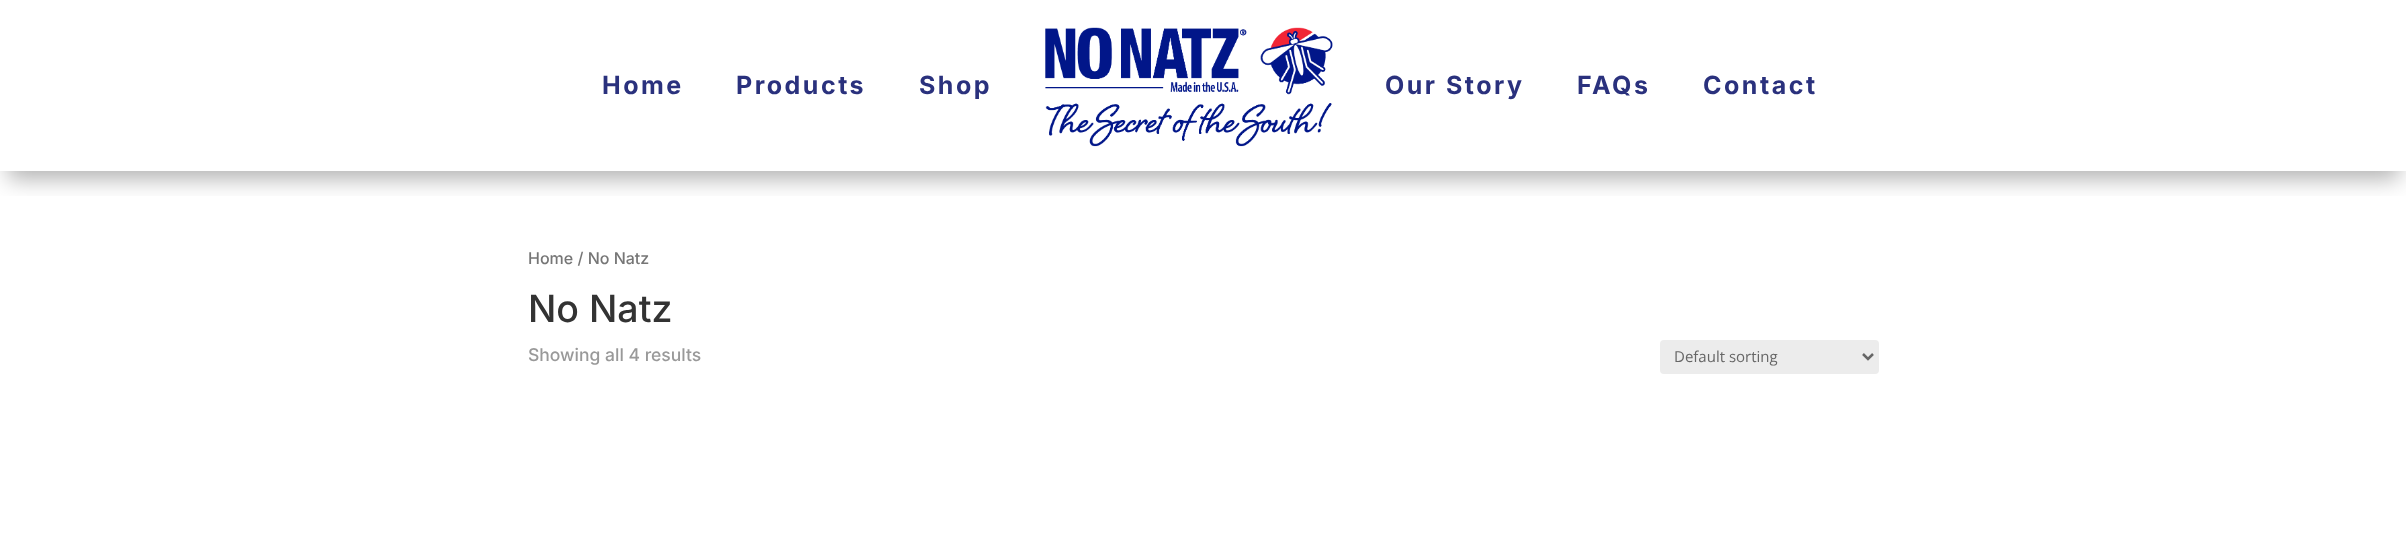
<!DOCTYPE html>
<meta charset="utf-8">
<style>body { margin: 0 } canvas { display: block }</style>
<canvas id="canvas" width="2406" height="548"></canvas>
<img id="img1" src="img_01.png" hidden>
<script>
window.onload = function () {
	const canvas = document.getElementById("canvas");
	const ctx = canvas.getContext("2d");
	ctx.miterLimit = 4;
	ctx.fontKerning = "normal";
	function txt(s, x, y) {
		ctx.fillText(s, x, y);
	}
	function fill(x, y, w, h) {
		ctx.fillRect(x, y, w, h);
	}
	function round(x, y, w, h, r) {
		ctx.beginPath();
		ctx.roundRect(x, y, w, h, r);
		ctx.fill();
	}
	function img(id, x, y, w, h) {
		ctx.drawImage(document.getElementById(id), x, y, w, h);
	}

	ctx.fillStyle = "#FFFFFF";
	fill(0, 0, 2406, 548);
	ctx.save();
	ctx.beginPath();
	ctx.rect(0, 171, 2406, 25);
	ctx.clip();
	ctx.fillStyle = "rgba(0, 0, 0, 0.3)";
	ctx.filter = "blur(11px)";
	ctx.beginPath();
	ctx.rect(8, 23, 2391, 156);
	ctx.fill();
	ctx.filter = "none";
	ctx.restore();
	img("img1", 1045, 27, 288, 120);
	ctx.fillStyle = "#ECECEC";
	round(1660, 340, 219, 34, 4);
	ctx.beginPath();
	ctx.moveTo(1863, 354);
	ctx.lineTo(1868, 359);
	ctx.lineTo(1873, 354);
	ctx.strokeStyle = "#666666";
	ctx.lineWidth = 2.5;
	ctx.stroke();
	ctx.letterSpacing = "2.5px";
	ctx.font = "bold 25px Inter";
	ctx.fillStyle = "#2A317D";
	txt("Home", 602, 94);
	txt("Products", 736, 94);
	txt("Shop", 919, 94);
	txt("Our Story", 1385, 94);
	txt("FAQs", 1577, 94);
	txt("Contact", 1703, 94);
	ctx.letterSpacing = "0px";
	ctx.font = "500 16px Inter";
	ctx.fillStyle = "#767676";
	txt("Home / No Natz", 528, 264);
	ctx.font = "500 37.5px Inter";
	ctx.fillStyle = "#333333";
	txt("No Natz", 528, 322);
	ctx.font = "500 17.5px Inter";
	ctx.fillStyle = "#999999";
	txt("Showing all 4 results", 528, 361);
	ctx.font = "15px Open Sans";
	ctx.fillStyle = "#666666";
	txt("Default sorting", 1674, 362);
};
</script>
